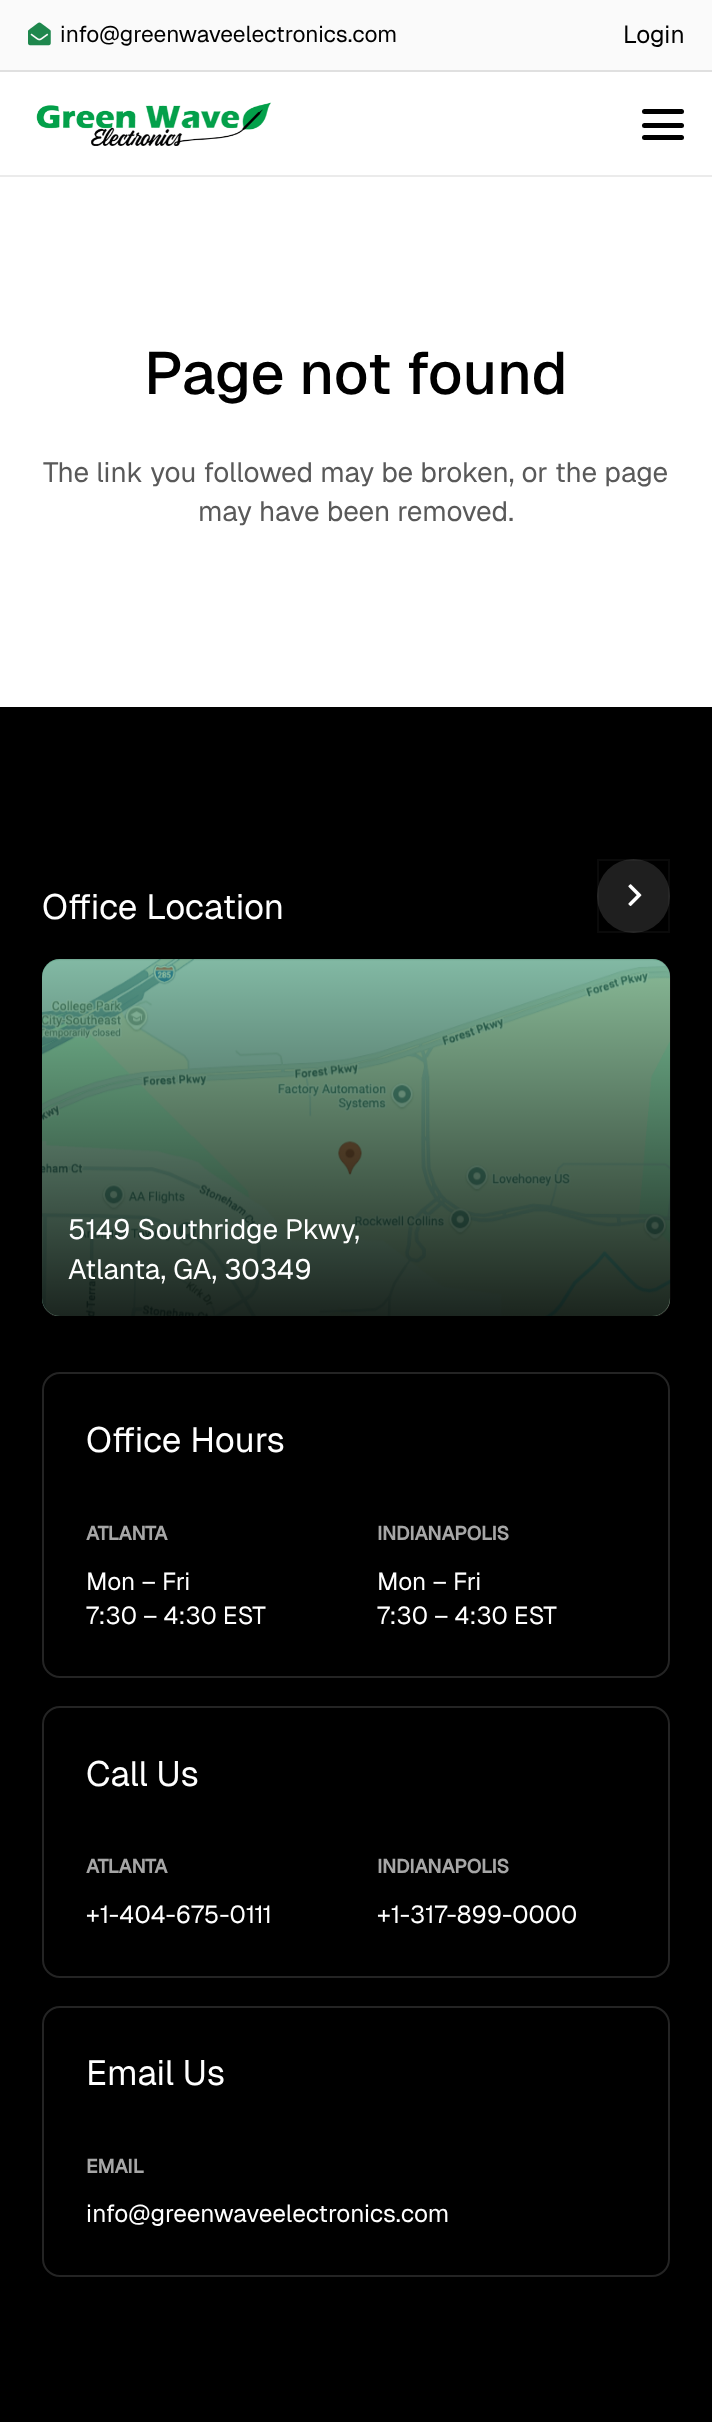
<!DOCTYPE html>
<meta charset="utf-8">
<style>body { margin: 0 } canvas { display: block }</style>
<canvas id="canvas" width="712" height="2422"></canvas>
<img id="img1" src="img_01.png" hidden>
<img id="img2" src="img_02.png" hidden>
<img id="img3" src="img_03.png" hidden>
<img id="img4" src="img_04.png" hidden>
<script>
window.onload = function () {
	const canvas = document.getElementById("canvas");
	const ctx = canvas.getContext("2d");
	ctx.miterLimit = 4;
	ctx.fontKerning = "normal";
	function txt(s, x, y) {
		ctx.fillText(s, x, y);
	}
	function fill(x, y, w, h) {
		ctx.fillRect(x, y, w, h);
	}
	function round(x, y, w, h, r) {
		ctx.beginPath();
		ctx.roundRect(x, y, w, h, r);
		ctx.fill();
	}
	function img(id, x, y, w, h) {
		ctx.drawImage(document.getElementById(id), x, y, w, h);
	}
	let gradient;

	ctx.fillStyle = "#FFFFFF";
	fill(0, 0, 712, 2422);
	ctx.fillStyle = "#FAFAFA";
	fill(0, 0, 712, 70);
	img("img1", 28, 22, 23, 24);
	ctx.fillStyle = "#EBEBEB";
	fill(0, 175, 712, 2);
	ctx.fillStyle = "#E0E0E0";
	fill(0, 70, 712, 2);
	img("img2", 36, 102, 236, 44);
	ctx.fillStyle = "#000000";
	round(642, 123, 42, 5, 2.5);
	round(642, 109, 42, 5, 2.5);
	round(642, 135, 42, 5, 2.5);
	fill(0, 707, 712, 1715);
	ctx.fillStyle = "#1F1F1F";
	round(597, 859, 73, 74, 36.5);
	img("img3", 628, 884, 14, 22);
	ctx.strokeStyle = "rgba(255, 255, 255, 0.04)";
	ctx.lineWidth = 2;
	ctx.strokeRect(598, 860, 71, 72);
	ctx.fillStyle = "#1E874D";
	round(42, 959, 628, 357, 18);
	img("img4", 42, 959, 629, 357);
	gradient = ctx.createLinearGradient(356, 959, 356, 1316);
	gradient.addColorStop(0, "rgba(0, 0, 0, 0)");
	gradient.addColorStop(1, "rgba(0, 0, 0, 0.8)");
	gradient.addColorStop(1, "rgba(30, 135, 77, 0.45)");
	gradient.addColorStop(1, "rgba(30, 135, 77, 0.65)");
	ctx.fillStyle = gradient;
	round(42, 959, 628, 357, 18);
	ctx.beginPath();
	ctx.roundRect(43, 1373, 626, 304, 17);
	ctx.strokeStyle = "#242424";
	ctx.stroke();
	ctx.beginPath();
	ctx.roundRect(43, 1707, 626, 270, 17);
	ctx.stroke();
	ctx.beginPath();
	ctx.roundRect(43, 2007, 626, 269, 17);
	ctx.stroke();
	ctx.font = "22.75px Geist";
	ctx.fillStyle = "#000000";
	txt("info@greenwaveelectronics.com", 60, 42);
	ctx.font = "24.5px Geist";
	txt("Login", 623, 43);
	ctx.font = "500 59.5px Geist";
	txt("Page not found", 144, 394);
	ctx.font = "28px Geist";
	ctx.fillStyle = "#595959";
	txt("The link you followed may be broken, or the page", 43, 482);
	txt("may have been removed.", 198, 521);
	ctx.font = "35px Geist";
	ctx.fillStyle = "#FFFFFF";
	txt("Office Location", 42, 919);
	ctx.font = "28px Geist";
	txt("5149 Southridge Pkwy,", 68, 1239);
	txt("Atlanta, GA, 30349", 68, 1279);
	ctx.font = "35px Geist";
	txt("Office Hours", 86, 1452);
	ctx.font = "bold 19.25px Geist";
	ctx.fillStyle = "#A6A6A6";
	txt("ATLANTA", 86, 1540);
	ctx.font = "24.5px Geist";
	ctx.fillStyle = "#FFFFFF";
	txt("Mon – Fri", 86, 1590);
	txt("7:30 – 4:30 EST", 86, 1624);
	ctx.font = "bold 19.25px Geist";
	ctx.fillStyle = "#A6A6A6";
	txt("INDIANAPOLIS", 377, 1540);
	ctx.font = "24.5px Geist";
	ctx.fillStyle = "#FFFFFF";
	txt("Mon – Fri", 377, 1590);
	txt("7:30 – 4:30 EST", 377, 1624);
	ctx.font = "35px Geist";
	txt("Call Us", 86, 1786);
	ctx.font = "bold 19.25px Geist";
	ctx.fillStyle = "#A6A6A6";
	txt("ATLANTA", 86, 1873);
	ctx.font = "24.5px Geist";
	ctx.fillStyle = "#FFFFFF";
	txt("+1-404-675-0111", 86, 1923);
	ctx.font = "bold 19.25px Geist";
	ctx.fillStyle = "#A6A6A6";
	txt("INDIANAPOLIS", 377, 1873);
	ctx.font = "24.5px Geist";
	ctx.fillStyle = "#FFFFFF";
	txt("+1-317-899-0000", 377, 1923);
	ctx.font = "35px Geist";
	txt("Email Us", 86, 2085);
	ctx.font = "bold 19.25px Geist";
	ctx.fillStyle = "#A6A6A6";
	txt("EMAIL", 86, 2173);
	ctx.font = "24.5px Geist";
	ctx.fillStyle = "#FFFFFF";
	txt("info@greenwaveelectronics.com", 86, 2222);
};
</script>
